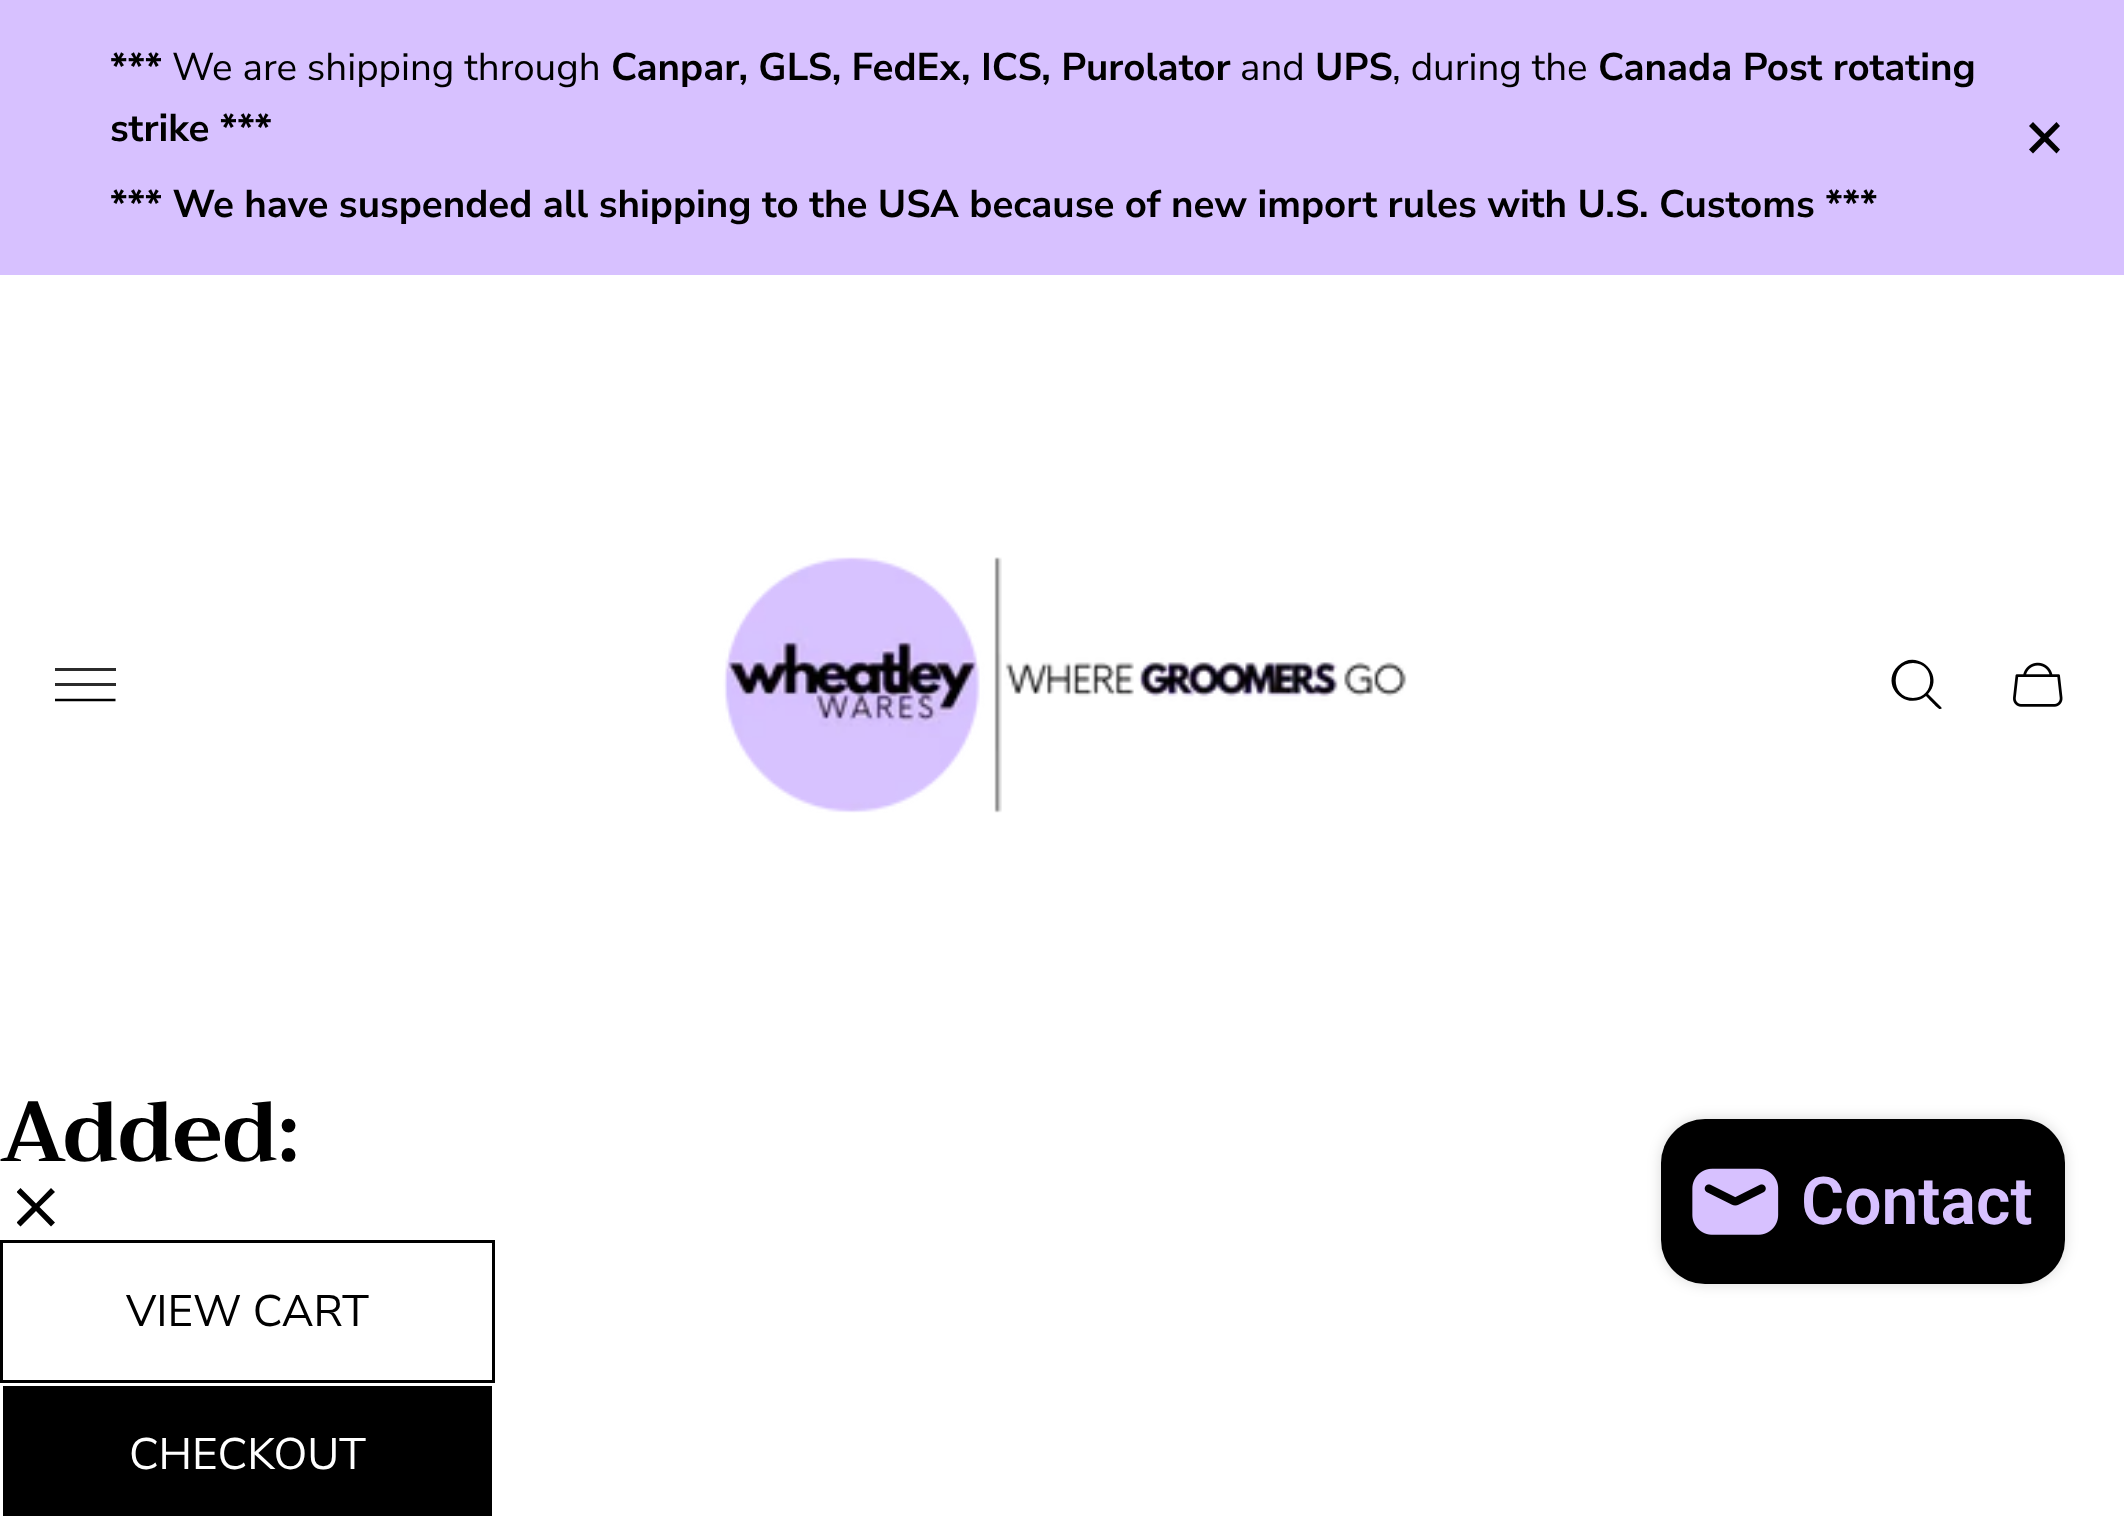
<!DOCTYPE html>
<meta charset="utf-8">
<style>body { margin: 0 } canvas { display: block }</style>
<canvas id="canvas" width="2124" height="1516"></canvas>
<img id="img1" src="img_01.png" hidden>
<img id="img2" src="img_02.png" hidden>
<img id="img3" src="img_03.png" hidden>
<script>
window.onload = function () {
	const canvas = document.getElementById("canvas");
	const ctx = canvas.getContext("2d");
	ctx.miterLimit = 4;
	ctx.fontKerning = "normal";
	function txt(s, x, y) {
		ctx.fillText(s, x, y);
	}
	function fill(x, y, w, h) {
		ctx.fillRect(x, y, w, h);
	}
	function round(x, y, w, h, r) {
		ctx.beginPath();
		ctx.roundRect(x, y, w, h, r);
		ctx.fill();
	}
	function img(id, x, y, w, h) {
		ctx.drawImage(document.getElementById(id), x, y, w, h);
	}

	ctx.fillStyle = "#D7C1FF";
	fill(0, 0, 2124, 1516);
	ctx.fillStyle = "#000000";
	ctx.beginPath();
	ctx.moveTo(2056.5, 122);
	ctx.lineTo(2060, 126);
	ctx.lineTo(2033, 153.5);
	ctx.lineTo(2029, 149.5);
	ctx.closePath();
	ctx.fill();
	ctx.beginPath();
	ctx.moveTo(2029, 126);
	ctx.lineTo(2033, 122);
	ctx.lineTo(2060, 149.5);
	ctx.lineTo(2056.5, 153.5);
	ctx.closePath();
	ctx.fill();
	ctx.fillStyle = "#FFFFFF";
	fill(0, 275, 2124, 1241);
	ctx.fillStyle = "#2B2B2B";
	fill(55, 668, 61, 3);
	fill(55, 683, 61, 3);
	ctx.beginPath();
	ctx.moveTo(55, 700);
	ctx.lineTo(115.5, 700);
	ctx.strokeStyle = "#000000";
	ctx.lineWidth = 2.5;
	ctx.stroke();
	img("img1", 723, 557, 684, 256);
	ctx.fillStyle = "#000000";
	ctx.beginPath();
	ctx.moveTo(1941, 707);
	ctx.lineTo(1928, 694);
	ctx.bezierCurveTo(1946, 675, 1917, 647, 1898, 666);
	ctx.bezierCurveTo(1879, 685, 1906, 712, 1926, 696);
	ctx.bezierCurveTo(1928, 698, 1939, 710, 1940, 709);
	ctx.bezierCurveTo(1942, 709, 1942, 708, 1941, 707);
	ctx.closePath();
	ctx.moveTo(1913, 698);
	ctx.bezierCurveTo(1890, 698, 1890, 663, 1913, 663);
	ctx.bezierCurveTo(1936, 663, 1936, 698, 1913, 698);
	ctx.closePath();
	ctx.fill();
	img("img2", 2013, 662, 50, 45);
	ctx.save();
	ctx.beginPath();
	ctx.rect(17, 1188, 38, 39);
	ctx.clip();
	ctx.beginPath();
	ctx.moveTo(55, 1192);
	ctx.lineTo(51, 1188);
	ctx.lineTo(36, 1203.5);
	ctx.lineTo(20.5, 1188);
	ctx.lineTo(16.5, 1192);
	ctx.lineTo(32, 1207);
	ctx.lineTo(16.5, 1222.5);
	ctx.lineTo(20.5, 1226.5);
	ctx.lineTo(36, 1211);
	ctx.lineTo(51, 1226.5);
	ctx.lineTo(55, 1222.5);
	ctx.lineTo(39.5, 1207);
	ctx.closePath();
	ctx.fill();
	ctx.restore();
	ctx.lineWidth = 3;
	ctx.strokeRect(1.5, 1241.5, 492, 140);
	fill(3, 1386, 489, 130);
	ctx.fillStyle = "rgba(0, 0, 0, 0.15)";
	ctx.filter = "blur(7px)";
	ctx.beginPath();
	ctx.roundRect(1661, 1119, 404, 165, 44);
	ctx.fill();
	ctx.filter = "none";
	ctx.fillStyle = "#000000";
	round(1661, 1119, 404, 165, 44);
	img("img3", 1692, 1168, 87, 67);
	ctx.font = "200 38.5px Nunito Sans";
	txt("***", 110, 80);
	ctx.font = "200 38.5px 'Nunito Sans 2'";
	txt("We are shipping through", 172, 80);
	ctx.font = "200 38.5px Nunito Sans";
	txt("Canpar, GLS, FedEx, ICS, Purolator", 611, 80);
	ctx.font = "200 38.5px 'Nunito Sans 2'";
	txt("and", 1240, 80);
	ctx.font = "200 38.5px Nunito Sans";
	txt("UPS", 1315, 80);
	ctx.font = "200 38.5px 'Nunito Sans 2'";
	txt(", during the", 1392, 80);
	ctx.font = "200 38.5px Nunito Sans";
	txt("Canada Post rotating", 1598, 80);
	txt("strike ***", 110, 141);
	txt("*** We have suspended all shipping to the USA because of new import rules with U.S. Customs ***", 110, 217);
	ctx.font = "bold 85px Trirong";
	txt("Added:", 0, 1161);
	ctx.font = "200 44px 'Nunito Sans 2'";
	txt("VIEW CART", 126, 1326);
	ctx.fillStyle = "#FFFFFF";
	txt("CHECKOUT", 129, 1469);
	ctx.font = "600 66px Roboto";
	ctx.fillStyle = "#D7C1FF";
	txt("Contact", 1801, 1224);
};
</script>
